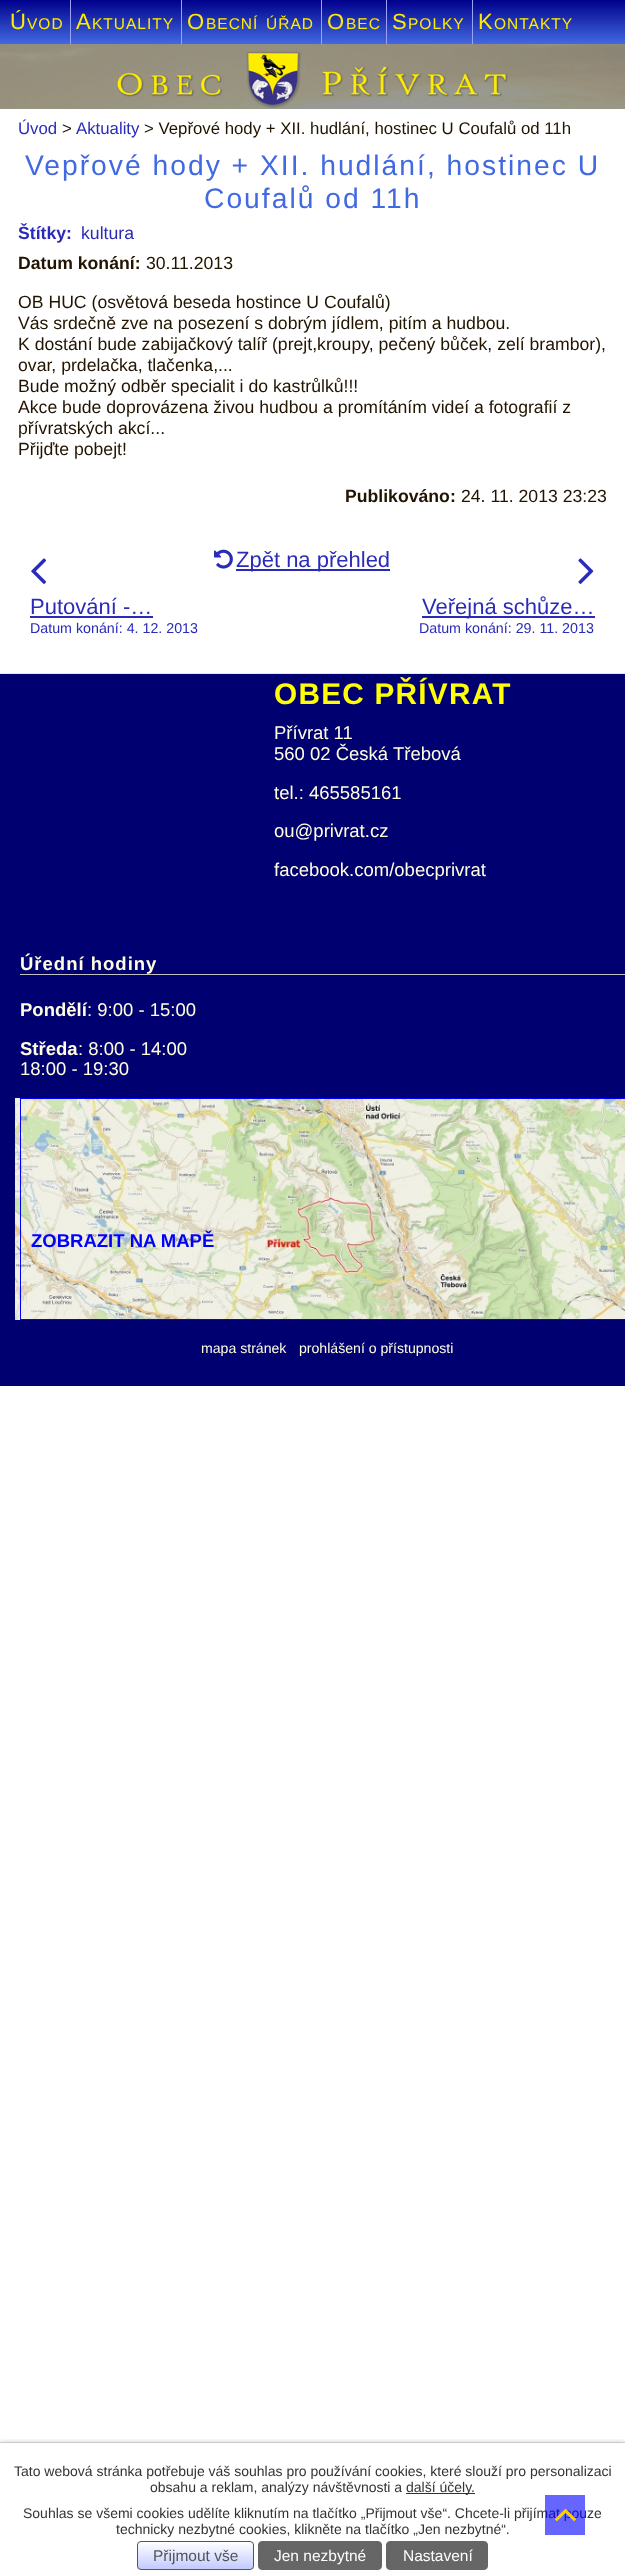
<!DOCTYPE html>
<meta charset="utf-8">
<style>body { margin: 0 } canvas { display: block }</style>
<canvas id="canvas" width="625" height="2575"></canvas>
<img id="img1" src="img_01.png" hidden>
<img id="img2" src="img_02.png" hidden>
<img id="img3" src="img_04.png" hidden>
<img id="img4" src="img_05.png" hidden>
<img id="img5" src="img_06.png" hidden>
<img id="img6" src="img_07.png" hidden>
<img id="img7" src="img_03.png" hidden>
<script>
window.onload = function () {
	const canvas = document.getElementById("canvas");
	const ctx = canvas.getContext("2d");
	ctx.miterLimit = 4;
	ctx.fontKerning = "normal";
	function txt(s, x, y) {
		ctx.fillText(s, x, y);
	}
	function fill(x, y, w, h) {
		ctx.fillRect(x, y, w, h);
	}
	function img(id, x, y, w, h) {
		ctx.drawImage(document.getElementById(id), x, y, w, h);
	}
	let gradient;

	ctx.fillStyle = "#FFFFFF";
	fill(0, 0, 625, 2575);
	img("img1", 0, 44, 625, 630);
	gradient = ctx.createLinearGradient(313, 0, 313, 44);
	gradient.addColorStop(0, "#00008B");
	gradient.addColorStop(1, "#4169E1");
	ctx.fillStyle = gradient;
	fill(0, 0, 625, 44);
	ctx.fillStyle = "#9CA1FC";
	fill(70, 0, 1, 44);
	fill(181, 0, 1, 44);
	fill(321, 0, 1, 44);
	fill(386, 0, 1, 44);
	fill(472, 0, 1, 44);
	ctx.fillStyle = "rgba(0, 0, 0, 0.4)";
	fill(0, 44, 625, 65);
	img("img2", 116, 51, 392, 57);
	ctx.fillStyle = "rgba(255, 255, 255, 0.8)";
	fill(0, 673, 625, 1);
	ctx.fillStyle = "#FFFFFF";
	fill(0, 109, 625, 564);
	img("img3", 214, 549, 19, 20);
	ctx.fillStyle = "#2B2BBA";
	fill(236, 569, 154, 2);
	img("img4", 31, 558, 16, 26);
	fill(30, 616, 123, 2);
	img("img5", 578, 558, 16, 26);
	fill(422, 616, 173, 2);
	ctx.fillStyle = "#000070";
	fill(0, 674, 625, 712);
	ctx.fillStyle = "#C0C0C0";
	fill(20, 974, 605, 1);
	img("img6", 15, 1098, 610, 222);
	ctx.strokeStyle = "#0000FF";
	ctx.strokeRect(20.5, 1098.5, 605, 221);
	ctx.save();
	ctx.beginPath();
	ctx.rect(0, 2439, 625, 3);
	ctx.clip();
	ctx.fillStyle = "rgba(0, 0, 0, 0.2)";
	ctx.filter = "blur(2.5px)";
	ctx.beginPath();
	ctx.rect(0, 2442, 625, 133);
	ctx.fill();
	ctx.filter = "none";
	ctx.restore();
	ctx.fillStyle = "#CCCCCC";
	fill(0, 2442, 625, 1);
	ctx.fillStyle = "#333333";
	fill(406, 2493, 69, 1);
	ctx.save();
	ctx.beginPath();
	ctx.roundRect(137, 2541, 117, 29, 4);
	ctx.clip();
	gradient = ctx.createLinearGradient(138, 2542, 138, 2569);
	gradient.addColorStop(0, "#FFFFFF");
	gradient.addColorStop(1, "#C2CAFF");
	ctx.fillStyle = gradient;
	fill(137, 2542, 117, 27);
	ctx.restore();
	ctx.beginPath();
	ctx.roundRect(137.5, 2541.5, 116, 28, 3.5);
	ctx.strokeStyle = "#555555";
	ctx.stroke();
	ctx.fillStyle = "#666666";
	ctx.beginPath();
	ctx.roundRect(258.5, 2541.5, 123, 28, 3.5);
	ctx.fill();
	ctx.strokeStyle = "#666666";
	ctx.stroke();
	ctx.beginPath();
	ctx.roundRect(386.5, 2541.5, 101, 28, 3.5);
	ctx.fill();
	ctx.stroke();
	ctx.letterSpacing = "1px";
	ctx.font = "22px Liberation Sans";
	ctx.fillStyle = "#FFEC00";
	txt("Ú", 10, 29);
	ctx.font = "15.5px Liberation Sans";
	txt("VOD", 27, 29);
	ctx.font = "22px Liberation Sans";
	txt("A", 76, 29);
	ctx.font = "15.5px Liberation Sans";
	txt("KTUALITY", 92, 29);
	ctx.font = "22px Liberation Sans";
	txt("O", 187, 29);
	ctx.font = "15.5px Liberation Sans";
	txt("BECNÍ", 206, 29);
	txt("ÚŘAD", 266, 29);
	ctx.font = "22px Liberation Sans";
	txt("O", 327, 29);
	ctx.font = "15.5px Liberation Sans";
	txt("BEC", 346, 29);
	ctx.font = "22px Liberation Sans";
	txt("S", 392, 29);
	ctx.font = "15.5px Liberation Sans";
	txt("POLKY", 408, 29);
	ctx.font = "22px Liberation Sans";
	txt("K", 478, 29);
	ctx.font = "15.5px Liberation Sans";
	txt("ONTAKTY", 494, 29);
	ctx.letterSpacing = "0px";
	ctx.font = "16.8px Liberation Sans";
	ctx.fillStyle = "#2B2BBA";
	txt("Úvod", 18, 134);
	ctx.fillStyle = "#211400";
	txt(">", 62, 134);
	ctx.fillStyle = "#2B2BBA";
	txt("Aktuality", 76, 134);
	ctx.fillStyle = "#211400";
	txt("> Vepřové hody + XII. hudlání, hostinec U Coufalů od 11h", 144, 134);
	ctx.letterSpacing = "2px";
	ctx.font = "28.25px Liberation Sans";
	ctx.fillStyle = "#4169E1";
	txt("Vepřové hody + XII. hudlání, hostinec U", 25, 175);
	txt("Coufalů od 11h", 204, 208);
	ctx.letterSpacing = "0px";
	ctx.font = "bold 17.65px Liberation Sans";
	ctx.fillStyle = "#2B2BBA";
	txt("Štítky:", 18, 239);
	ctx.font = "17.65px Liberation Sans";
	txt("kultura", 81, 239);
	ctx.font = "bold 17.65px Liberation Sans";
	ctx.fillStyle = "#211400";
	txt("Datum konání:", 18, 269);
	ctx.font = "17.65px Liberation Sans";
	txt("30.11.2013", 146, 269);
	txt("OB HUC (osvětová beseda hostince U Coufalů)", 18, 308);
	txt("Vás srdečně zve na posezení s dobrým jídlem, pitím a hudbou.", 18, 329);
	txt("K dostání bude zabijačkový talíř (prejt,kroupy, pečený bůček, zelí brambor),", 18, 350);
	txt("ovar, prdelačka, tlačenka,...", 18, 371);
	txt("Bude možný odběr specialit i do kastrůlků!!!", 18, 392);
	txt("Akce bude doprovázena živou hudbou a promítáním videí a fotografií z", 18, 413);
	txt("přívratských akcí...", 18, 434);
	txt("Přijďte pobejt!", 18, 455);
	ctx.font = "bold 17.65px Liberation Sans";
	txt("Publikováno:", 345, 502);
	ctx.font = "17.65px Liberation Sans";
	txt("24. 11. 2013 23:23", 461, 502);
	ctx.font = "22px Liberation Sans";
	ctx.fillStyle = "#2B2BBA";
	txt("Zpět na přehled", 236, 567);
	txt("Putování -…", 30, 614);
	ctx.font = "14.25px Liberation Sans";
	txt("Datum konání: 4. 12. 2013", 30, 633);
	ctx.font = "22px Liberation Sans";
	txt("Veřejná schůze…", 422, 614);
	ctx.font = "14.25px Liberation Sans";
	txt("Datum konání: 29. 11. 2013", 419, 633);
	ctx.letterSpacing = "1.25px";
	ctx.font = "bold 29.75px Liberation Sans";
	ctx.fillStyle = "#FFFF00";
	txt("OBEC PŘÍVRAT", 274, 704);
	ctx.letterSpacing = "0px";
	ctx.font = "18.5px Liberation Sans";
	ctx.fillStyle = "#FFFFE0";
	txt("Přívrat 11", 274, 739);
	txt("560 02 Česká Třebová", 274, 760);
	txt("tel.: 465585161", 274, 799);
	txt("ou@privrat.cz", 274, 837);
	txt("facebook.com/obecprivrat", 274, 876);
	ctx.letterSpacing = "1px";
	ctx.font = "bold 18.5px Liberation Sans";
	txt("Úřední hodiny", 20, 970);
	ctx.letterSpacing = "0px";
	txt("Pondělí", 20, 1016);
	ctx.font = "18.5px Liberation Sans";
	txt(": 9:00 - 15:00", 87, 1016);
	ctx.font = "bold 18.5px Liberation Sans";
	txt("Středa", 20, 1055);
	ctx.font = "18.5px Liberation Sans";
	txt(": 8:00 - 14:00", 78, 1055);
	txt("18:00 - 19:30", 20, 1075);
	ctx.font = "bold 18.5px Liberation Sans";
	ctx.fillStyle = "#0000FF";
	txt("ZOBRAZIT NA MAPĚ", 31, 1247);
	ctx.font = "14.1px Liberation Sans";
	ctx.fillStyle = "#FFFFE0";
	txt("mapa stránek", 201, 1353);
	ctx.fillStyle = "#211400";
	txt("-", 291, 1353);
	ctx.fillStyle = "#FFFFE0";
	txt("prohlášení o přístupnosti", 299, 1353);
	ctx.font = "14px Liberation Sans";
	ctx.fillStyle = "#333333";
	txt("Tato webová stránka potřebuje váš souhlas pro používání cookies, které slouží pro personalizaci", 14, 2476);
	txt("obsahu a reklam, analýzy návštěvnosti a", 150, 2492);
	txt("další účely.", 406, 2492);
	txt("Souhlas se všemi cookies udělíte kliknutím na tlačítko „Přijmout vše“. Chcete-li přijímat pouze", 23, 2518);
	ctx.fillStyle = "rgba(0, 0, 255, 0.6)";
	fill(545, 2495, 40, 40);
	img("img7", 554, 2509, 22, 13);
	ctx.fillStyle = "#333333";
	txt("technicky nezbytné cookies, klikněte na tlačítko „Jen nezbytné“.", 116, 2534);
	ctx.font = "15.5px Liberation Sans";
	ctx.fillStyle = "#555555";
	txt("Přijmout vše", 153, 2561);
	ctx.fillStyle = "#FFFFFF";
	txt("Jen nezbytné", 274, 2561);
	txt("Nastavení", 403, 2561);
};
</script>
